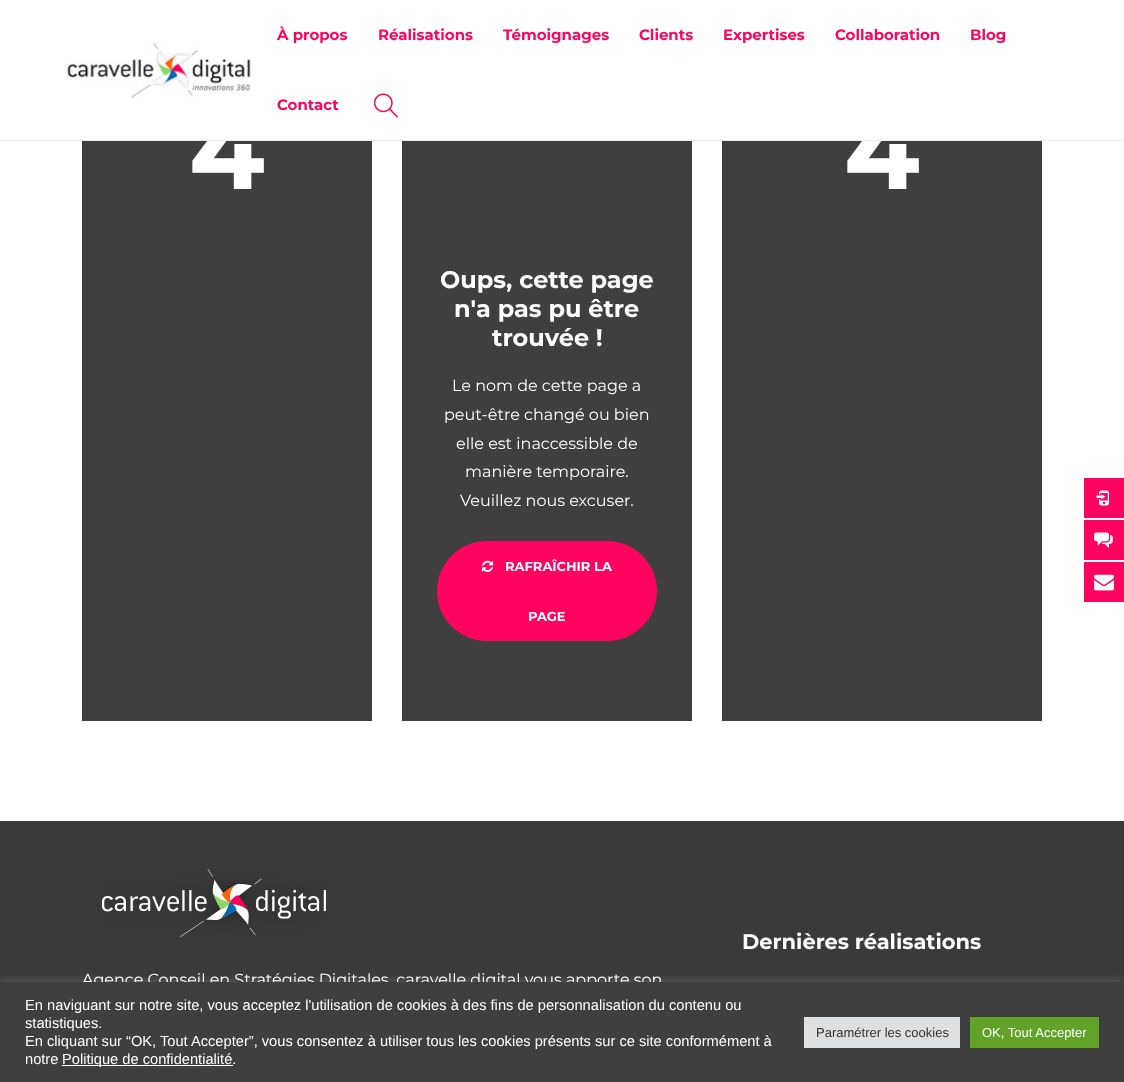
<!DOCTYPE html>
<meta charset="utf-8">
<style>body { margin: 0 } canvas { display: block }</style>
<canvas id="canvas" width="1124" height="1082"></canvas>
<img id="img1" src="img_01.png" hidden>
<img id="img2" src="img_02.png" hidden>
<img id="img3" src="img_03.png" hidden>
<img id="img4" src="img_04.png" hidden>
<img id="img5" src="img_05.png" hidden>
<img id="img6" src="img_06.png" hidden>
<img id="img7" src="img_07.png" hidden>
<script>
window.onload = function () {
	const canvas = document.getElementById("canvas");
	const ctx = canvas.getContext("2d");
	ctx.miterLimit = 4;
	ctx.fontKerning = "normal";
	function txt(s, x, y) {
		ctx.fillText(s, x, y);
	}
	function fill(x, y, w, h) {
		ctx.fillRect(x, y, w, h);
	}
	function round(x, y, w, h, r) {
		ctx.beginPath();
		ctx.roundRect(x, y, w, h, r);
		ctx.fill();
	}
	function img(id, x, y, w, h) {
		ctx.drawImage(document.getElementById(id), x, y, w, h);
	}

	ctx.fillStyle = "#FFFFFF";
	fill(0, 0, 1124, 1082);
	img("img1", 67, 42, 184, 56);
	img("img2", 373, 93, 25, 25);
	ctx.fillStyle = "#3F3F3F";
	fill(82, 141, 960, 580);
	ctx.fillStyle = "#FFFFFF";
	fill(372, 141, 30, 580);
	fill(692, 141, 30, 580);
	ctx.fillStyle = "#FE0460";
	round(437, 541, 220, 100, 50);
	img("img3", 482, 560, 12, 12);
	ctx.fillStyle = "#3A3A3A";
	fill(0, 821, 1124, 161);
	img("img4", 102, 869, 224, 68);
	ctx.fillStyle = "#FE0460";
	fill(1084, 478, 40, 40);
	img("img5", 1096, 490, 13, 16);
	fill(1084, 520, 40, 40);
	img("img6", 1094, 532, 19, 16);
	fill(1084, 562, 40, 40);
	img("img7", 1094, 574, 20, 17);
	ctx.fillStyle = "rgba(172, 171, 171, 0.3)";
	ctx.filter = "blur(5px)";
	ctx.beginPath();
	ctx.rect(0, 981, 1124, 100);
	ctx.fill();
	ctx.filter = "none";
	ctx.font = "bold 15px Montserrat";
	ctx.fillStyle = "#FE0460";
	txt("À propos", 277, 40);
	txt("Réalisations", 378, 40);
	txt("Témoignages", 503, 40);
	txt("Clients", 639, 40);
	txt("Expertises", 723, 40);
	txt("Collaboration", 835, 40);
	txt("Blog", 970, 40);
	txt("Contact", 277, 110);
	ctx.font = "bold 110px Montserrat";
	ctx.fillStyle = "#FFFFFF";
	txt("4", 189, 189);
	txt("4", 844, 189);
	ctx.fillStyle = "#EBEBEB";
	fill(0, 140, 1124, 1);
	ctx.font = "bold 24px Montserrat";
	ctx.fillStyle = "#FFFFFF";
	txt("Oups, cette page", 440, 288);
	txt("n'a pas pu être", 454, 317);
	txt("trouvée !", 492, 346);
	ctx.font = "16px Montserrat";
	txt("Le nom de cette page a", 452, 391);
	txt("peut-être changé ou bien", 444, 420);
	txt("elle est inaccessible de", 456, 449);
	txt("manière temporaire.", 465, 477);
	txt("Veuillez nous excuser.", 460, 506);
	ctx.font = "bold 13px Montserrat";
	txt("RAFRAÎCHIR LA", 505, 571);
	txt("PAGE", 528, 621);
	ctx.font = "bold 21px Montserrat";
	txt("Dernières réalisations", 742, 949);
	ctx.font = "16px Montserrat";
	txt("Agence Conseil en Stratégies Digitales, caravelle digital vous apporte son", 82, 985);
	ctx.fillStyle = "#3F3F3F";
	fill(0, 982, 1124, 100);
	ctx.font = "14.67px Liberation Sans";
	ctx.fillStyle = "#FFFFFF";
	txt("En naviguant sur notre site, vous acceptez l'utilisation de cookies à des fins de personnalisation du contenu ou", 25, 1010);
	txt("statistiques.", 25, 1028);
	txt("En cliquant sur “OK, Tout Accepter”, vous consentez à utiliser tous les cookies présents sur ce site conformément à", 25, 1046);
	txt("notre", 25, 1064);
	fill(62, 1065, 171, 1);
	txt("Politique de confidentialité.", 62, 1064);
	ctx.fillStyle = "#DEDFE0";
	fill(804, 1017, 156, 31);
	ctx.font = "13px Liberation Sans";
	ctx.fillStyle = "#333333";
	txt("Paramétrer les cookies", 816, 1037);
	ctx.fillStyle = "#61A229";
	fill(970, 1017, 129, 31);
	ctx.fillStyle = "#FFFFFF";
	txt("OK, Tout Accepter", 982, 1037);
};
</script>
